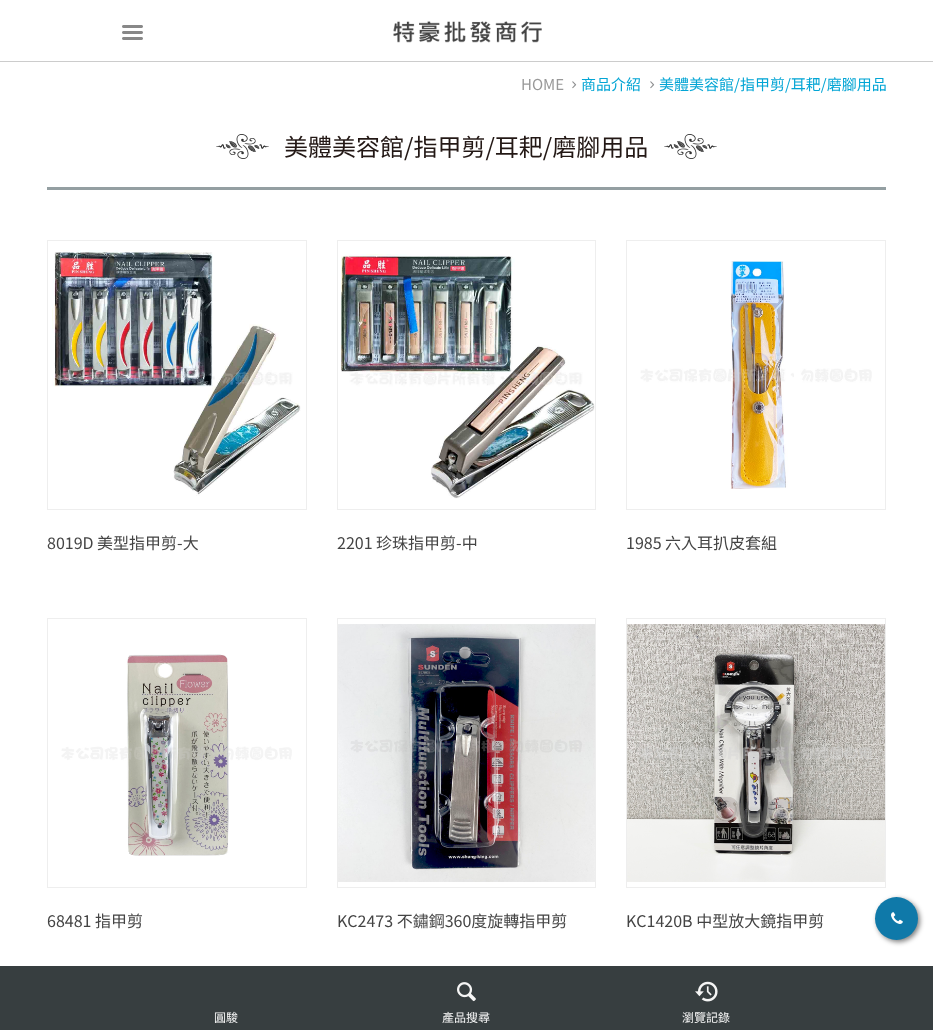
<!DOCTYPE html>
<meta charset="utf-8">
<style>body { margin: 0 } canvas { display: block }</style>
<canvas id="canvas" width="933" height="1030"></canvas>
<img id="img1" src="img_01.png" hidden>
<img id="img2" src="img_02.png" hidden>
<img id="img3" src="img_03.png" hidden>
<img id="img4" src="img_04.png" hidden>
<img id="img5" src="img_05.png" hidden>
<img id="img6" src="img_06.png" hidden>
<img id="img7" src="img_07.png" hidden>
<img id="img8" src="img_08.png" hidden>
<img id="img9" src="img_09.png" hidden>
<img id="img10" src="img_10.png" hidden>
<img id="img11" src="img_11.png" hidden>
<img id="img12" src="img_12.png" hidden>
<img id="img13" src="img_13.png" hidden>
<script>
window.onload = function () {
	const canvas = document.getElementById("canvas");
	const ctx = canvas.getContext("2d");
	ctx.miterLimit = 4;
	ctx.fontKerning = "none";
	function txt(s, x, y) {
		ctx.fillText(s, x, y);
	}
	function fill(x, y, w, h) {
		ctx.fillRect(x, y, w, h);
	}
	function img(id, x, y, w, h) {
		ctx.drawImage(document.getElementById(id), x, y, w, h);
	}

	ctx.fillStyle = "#FFFFFF";
	fill(0, 0, 933, 1030);
	ctx.fillStyle = "#CCCCCC";
	fill(0, 61, 933, 1);
	img("img1", 122, 25, 21, 15);
	img("img2", 393, 21, 149, 22);
	ctx.fillStyle = "rgba(0, 0, 0, 0.5)";
	ctx.filter = "blur(2.5px)";
	ctx.beginPath();
	ctx.roundRect(877, 899, 43, 43, 21.5);
	ctx.fill();
	ctx.filter = "none";
	ctx.fillStyle = "#0F79A9";
	ctx.beginPath();
	ctx.arc(896.5, 918.5, 21.5, 0, Math.PI * 2);
	ctx.fill();
	img("img3", 891, 912, 12, 12);
	img("img4", 572, 81, 5, 8);
	img("img4", 650, 81, 5, 8);
	ctx.fillStyle = "#949FA2";
	fill(47, 187, 839, 3);
	img("img5", 216, 134, 53, 25);
	img("img5", 664, 134, 53, 25);
	ctx.strokeStyle = "#EEEEEE";
	ctx.strokeRect(47.5, 240.5, 259, 269);
	img("img6", 52, 250, 249, 246);
	ctx.strokeRect(337.5, 240.5, 258, 269);
	img("img7", 341, 254, 254, 245);
	ctx.strokeRect(626.5, 240.5, 259, 269);
	img("img8", 640, 261, 232, 228);
	ctx.strokeRect(47.5, 618.5, 259, 269);
	img("img9", 61, 654, 231, 202);
	ctx.strokeRect(337.5, 618.5, 258, 269);
	img("img10", 338, 624, 257, 258);
	ctx.strokeRect(626.5, 618.5, 259, 269);
	img("img11", 627, 624, 258, 258);
	ctx.fillStyle = "#373E40";
	fill(0, 966, 933, 64);
	img("img12", 457, 982, 19, 20);
	img("img13", 695, 981, 23, 21);
	ctx.font = "15px Noto Sans TC";
	ctx.fillStyle = "#999999";
	txt("HOME", 521, 90);
	ctx.fillStyle = "#03A5D5";
	txt("商品介紹", 581, 90);
	txt("美體美容館/指甲剪/耳耙/磨腳用品", 659, 90);
	ctx.font = "24px Noto Sans TC";
	ctx.fillStyle = "#231815";
	txt("美體美容館/指甲剪/耳耙/磨腳用品", 284, 156);
	ctx.font = "16px Noto Sans TC";
	ctx.fillStyle = "#444444";
	txt("8019D 美型指甲剪-大", 47, 549);
	txt("2201 珍珠指甲剪-中", 337, 549);
	txt("1985 六入耳扒皮套組", 626, 549);
	txt("68481 指甲剪", 47, 927);
	txt("KC2473 不鏽鋼360度旋轉指甲剪", 337, 927);
	txt("KC1420B 中型放大鏡指甲剪", 626, 927);
	ctx.font = "12px Noto Sans TC";
	ctx.fillStyle = "#F5F5F5";
	txt("圓駿", 214, 1022);
	txt("產品搜尋", 442, 1022);
	txt("瀏覽記錄", 682, 1022);
};
</script>
